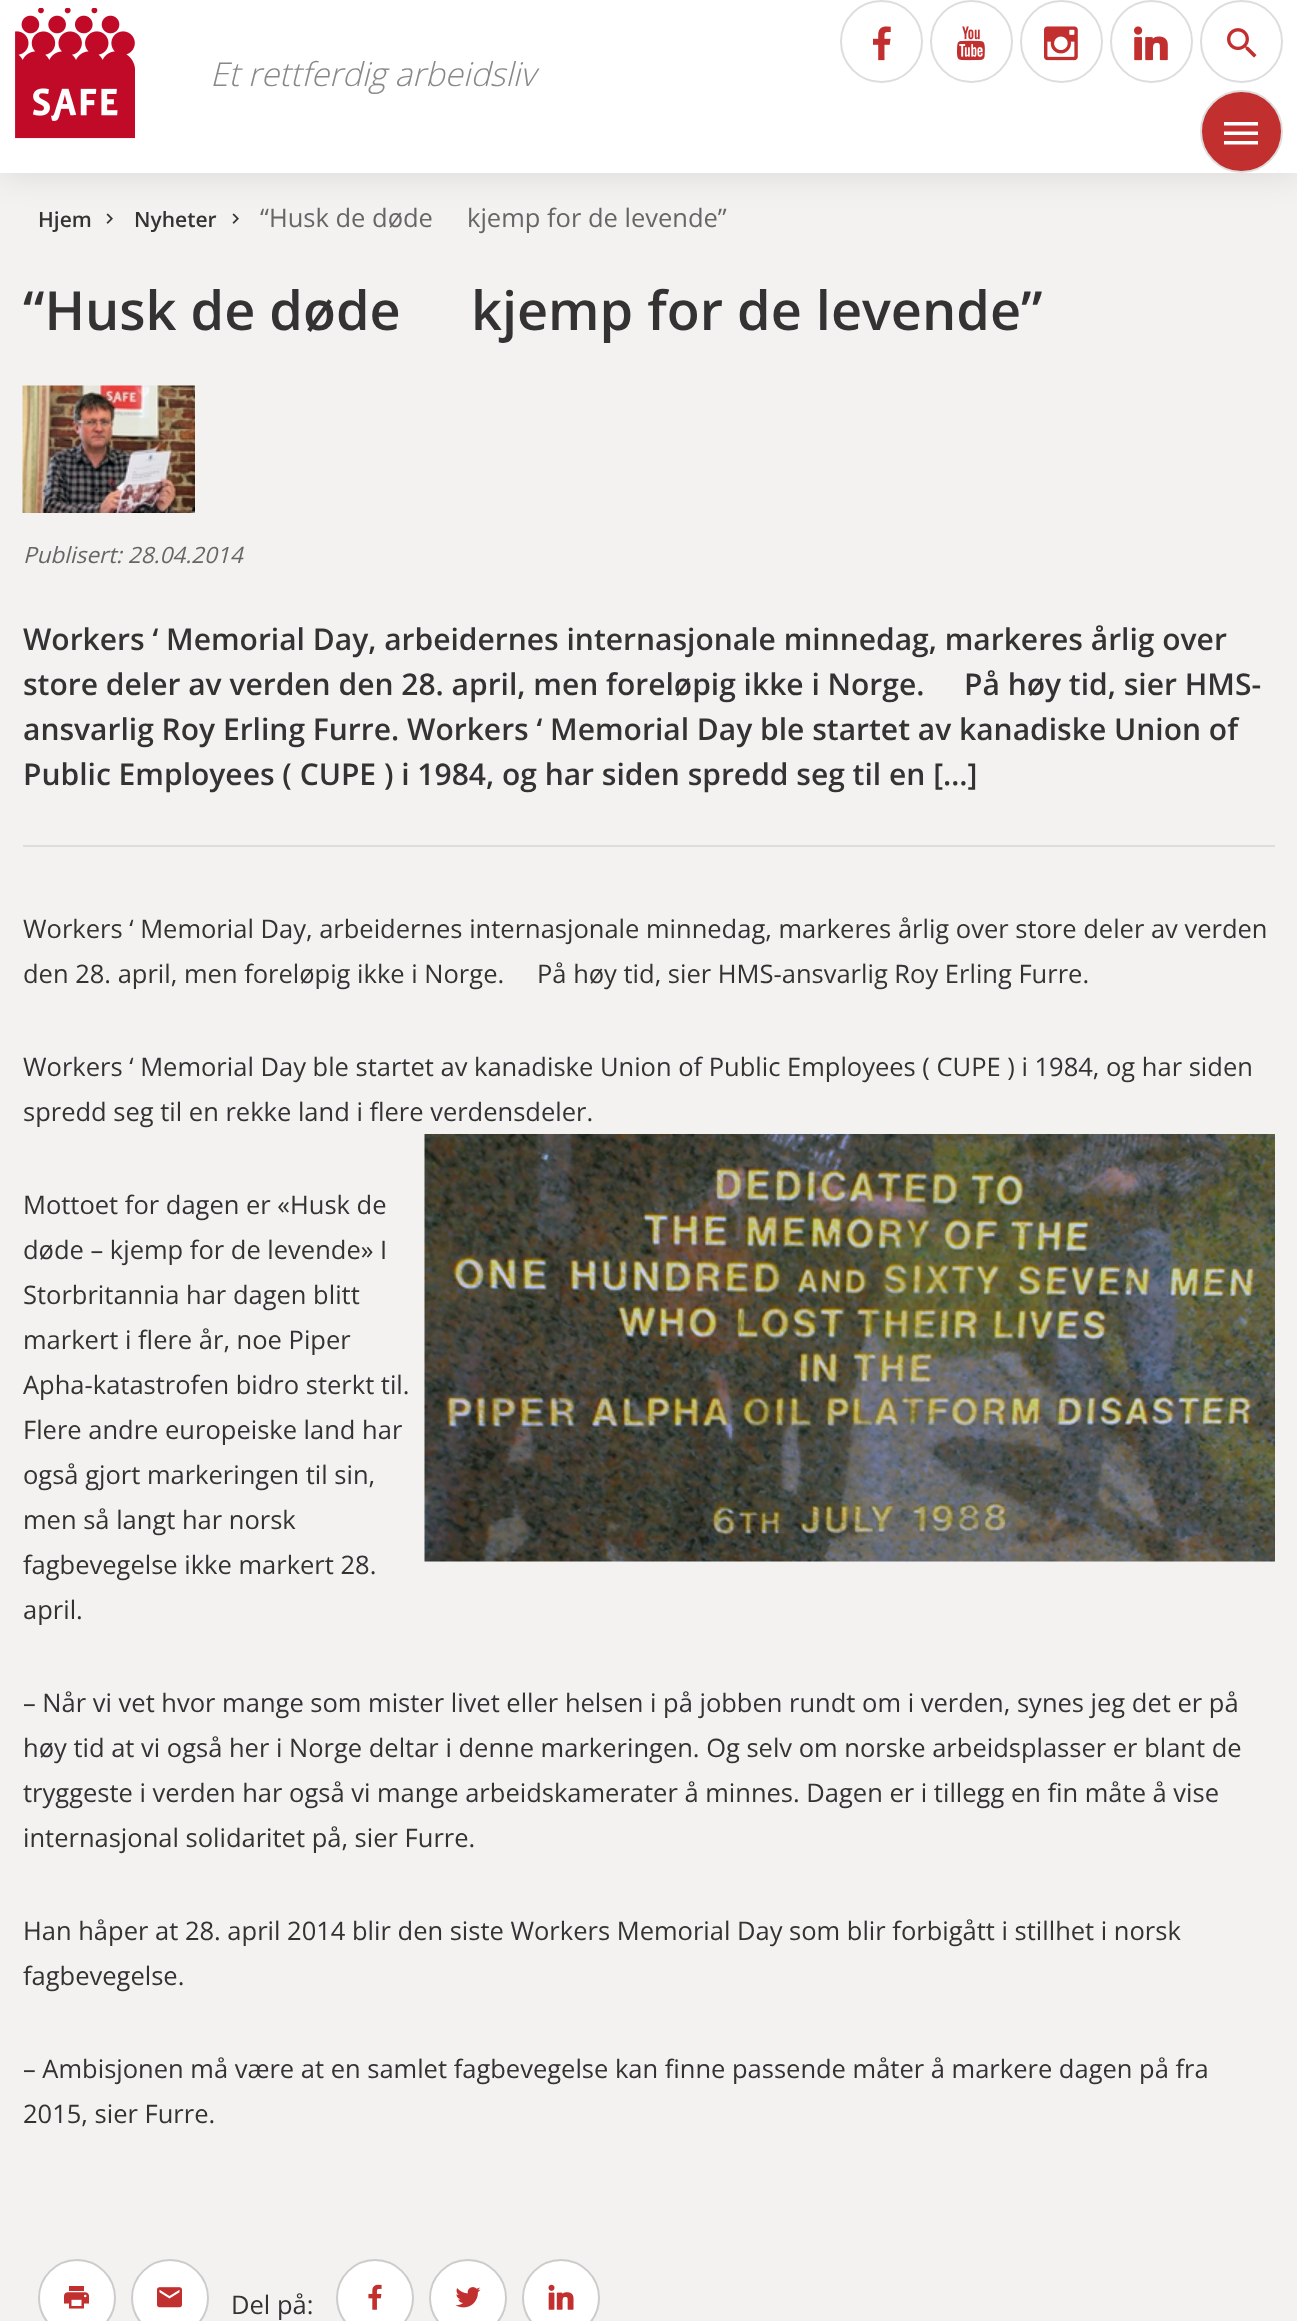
<!DOCTYPE html>
<meta charset="utf-8">
<style>body { margin: 0 } canvas { display: block }</style>
<canvas id="canvas" width="1297" height="2321"></canvas>
<img id="img1" src="img_07.png" hidden>
<img id="img2" src="img_01.png" hidden>
<img id="img3" src="img_02.png" hidden>
<img id="img4" src="img_03.png" hidden>
<img id="img5" src="img_04.png" hidden>
<img id="img6" src="img_05.png" hidden>
<img id="img7" src="img_06.png" hidden>
<img id="img8" src="img_08.png" hidden>
<img id="img9" src="img_09.png" hidden>
<img id="img10" src="img_10.png" hidden>
<img id="img11" src="img_11.png" hidden>
<img id="img12" src="img_12.png" hidden>
<img id="img13" src="img_13.png" hidden>
<img id="img14" src="img_14.png" hidden>
<script>
window.onload = function () {
	const canvas = document.getElementById("canvas");
	const ctx = canvas.getContext("2d");
	ctx.miterLimit = 4;
	ctx.fontKerning = "normal";
	function txt(s, x, y) {
		ctx.fillText(s, x, y);
	}
	function fill(x, y, w, h) {
		ctx.fillRect(x, y, w, h);
	}
	function img(id, x, y, w, h) {
		ctx.drawImage(document.getElementById(id), x, y, w, h);
	}

	ctx.fillStyle = "#F3F2F1";
	fill(0, 0, 1297, 2321);
	img("img1", 106, 213, 7, 11);
	img("img1", 232, 213, 7, 11);
	ctx.fillStyle = "rgba(0, 0, 0, 0.1)";
	ctx.filter = "blur(17px)";
	ctx.beginPath();
	ctx.rect(0, 2, 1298, 172);
	ctx.fill();
	ctx.filter = "none";
	ctx.fillStyle = "#FFFFFF";
	fill(0, 0, 1297, 173);
	img("img2", 15, 8, 120, 131);
	ctx.beginPath();
	ctx.arc(881.5, 41.5, 40.5, 0, Math.PI * 2);
	ctx.strokeStyle = "#DDDDDD";
	ctx.lineWidth = 2;
	ctx.stroke();
	img("img3", 873, 26, 18, 35);
	ctx.beginPath();
	ctx.arc(971.5, 41.5, 40.5, 0, Math.PI * 2);
	ctx.stroke();
	img("img4", 957, 26, 28, 35);
	ctx.beginPath();
	ctx.arc(1061.5, 41.5, 40.5, 0, Math.PI * 2);
	ctx.stroke();
	img("img5", 1044, 26, 34, 35);
	ctx.beginPath();
	ctx.arc(1151.5, 41.5, 40.5, 0, Math.PI * 2);
	ctx.stroke();
	img("img6", 1134, 26, 34, 35);
	ctx.beginPath();
	ctx.arc(1241.5, 41.5, 40.5, 0, Math.PI * 2);
	ctx.stroke();
	img("img7", 1227, 28, 30, 30);
	ctx.fillStyle = "#C12F2E";
	ctx.beginPath();
	ctx.arc(1241.5, 131.5, 40.5, 0, Math.PI * 2);
	ctx.fill();
	ctx.stroke();
	ctx.fillStyle = "#FFFFFF";
	ctx.beginPath();
	ctx.moveTo(1224, 144.5);
	ctx.lineTo(1224, 141);
	ctx.lineTo(1258, 141);
	ctx.lineTo(1258, 144.5);
	ctx.closePath();
	ctx.moveTo(1224, 135);
	ctx.lineTo(1224, 131.5);
	ctx.lineTo(1258, 131.5);
	ctx.lineTo(1258, 135);
	ctx.closePath();
	ctx.moveTo(1224, 122);
	ctx.lineTo(1258, 122);
	ctx.lineTo(1258, 125.5);
	ctx.lineTo(1224, 125.5);
	ctx.closePath();
	ctx.fill();
	img("img8", 22, 385, 173, 128);
	ctx.fillStyle = "#DDDDDD";
	fill(23, 845, 1252, 2);
	img("img9", 424, 1134, 851, 428);
	ctx.fillStyle = "#FFFFFF";
	ctx.beginPath();
	ctx.arc(77, 2298, 38, 0, Math.PI * 2);
	ctx.fill();
	ctx.strokeStyle = "#CCCCCC";
	ctx.stroke();
	img("img10", 64, 2286, 25, 23);
	ctx.beginPath();
	ctx.arc(170, 2298, 38, 0, Math.PI * 2);
	ctx.fill();
	ctx.stroke();
	img("img11", 157, 2287, 25, 21);
	ctx.beginPath();
	ctx.arc(375, 2298, 38, 0, Math.PI * 2);
	ctx.fill();
	ctx.stroke();
	img("img12", 368, 2284, 14, 26);
	ctx.beginPath();
	ctx.arc(468, 2298, 38, 0, Math.PI * 2);
	ctx.fill();
	ctx.stroke();
	img("img13", 455, 2287, 26, 21);
	ctx.beginPath();
	ctx.arc(561, 2298, 38, 0, Math.PI * 2);
	ctx.fill();
	ctx.stroke();
	img("img14", 548, 2284, 26, 26);
	ctx.font = "italic 300 33px Open Sans";
	ctx.fillStyle = "#888888";
	txt("Et rettferdig arbeidsliv", 210, 86);
	ctx.font = "600 21px Open Sans";
	ctx.fillStyle = "#333333";
	txt("Hjem", 38, 227);
	txt("Nyheter", 134, 227);
	ctx.font = "25.5px Open Sans";
	ctx.fillStyle = "#666666";
	txt("“Husk de døde", 260, 227);
	txt("kjemp for de levende”", 467, 227);
	ctx.font = "600 54px Open Sans";
	ctx.fillStyle = "#333333";
	txt("“Husk de døde", 23, 330);
	txt("kjemp for de levende”", 471, 330);
	ctx.font = "italic 22.5px Open Sans";
	ctx.fillStyle = "#666666";
	txt("Publisert: 28.04.2014", 23, 563);
	ctx.font = "600 30px Open Sans";
	ctx.fillStyle = "#333333";
	txt("Workers ‘ Memorial Day, arbeidernes internasjonale minnedag, markeres årlig over", 23, 650);
	txt("store deler av verden den 28. april, men foreløpig ikke i Norge.", 23, 695);
	txt("På høy tid, sier HMS-", 964, 695);
	txt("ansvarlig Roy Erling Furre. Workers ‘ Memorial Day ble startet av kanadiske Union of", 23, 740);
	txt("Public Employees ( CUPE ) i 1984, og har siden spredd seg til en […]", 23, 785);
	ctx.font = "25.5px Open Sans";
	txt("Workers ‘ Memorial Day, arbeidernes internasjonale minnedag, markeres årlig over store deler av verden", 23, 938);
	txt("den 28. april, men foreløpig ikke i Norge.", 23, 983);
	txt("På høy tid, sier HMS-ansvarlig Roy Erling Furre.", 537, 983);
	txt("Workers ‘ Memorial Day ble startet av kanadiske Union of Public Employees ( CUPE ) i 1984, og har siden", 23, 1076);
	txt("spredd seg til en rekke land i flere verdensdeler.", 23, 1121);
	txt("Mottoet for dagen er «Husk de", 23, 1214);
	txt("døde – kjemp for de levende» I", 23, 1259);
	txt("Storbritannia har dagen blitt", 23, 1304);
	txt("markert i flere år, noe Piper", 23, 1349);
	txt("Apha-katastrofen bidro sterkt til.", 23, 1394);
	txt("Flere andre europeiske land har", 23, 1439);
	txt("også gjort markeringen til sin,", 23, 1484);
	txt("men så langt har norsk", 23, 1529);
	txt("fagbevegelse ikke markert 28.", 23, 1574);
	txt("april.", 23, 1619);
	txt("– Når vi vet hvor mange som mister livet eller helsen i på jobben rundt om i verden, synes jeg det er på", 23, 1712);
	txt("høy tid at vi også her i Norge deltar i denne markeringen. Og selv om norske arbeidsplasser er blant de", 23, 1757);
	txt("tryggeste i verden har også vi mange arbeidskamerater å minnes. Dagen er i tillegg en fin måte å vise", 23, 1802);
	txt("internasjonal solidaritet på, sier Furre.", 23, 1847);
	txt("Han håper at 28. april 2014 blir den siste Workers Memorial Day som blir forbigått i stillhet i norsk", 23, 1940);
	txt("fagbevegelse.", 23, 1985);
	txt("– Ambisjonen må være at en samlet fagbevegelse kan finne passende måter å markere dagen på fra", 23, 2078);
	txt("2015, sier Furre.", 23, 2123);
	txt("Del på:", 231, 2314);
};
</script>
